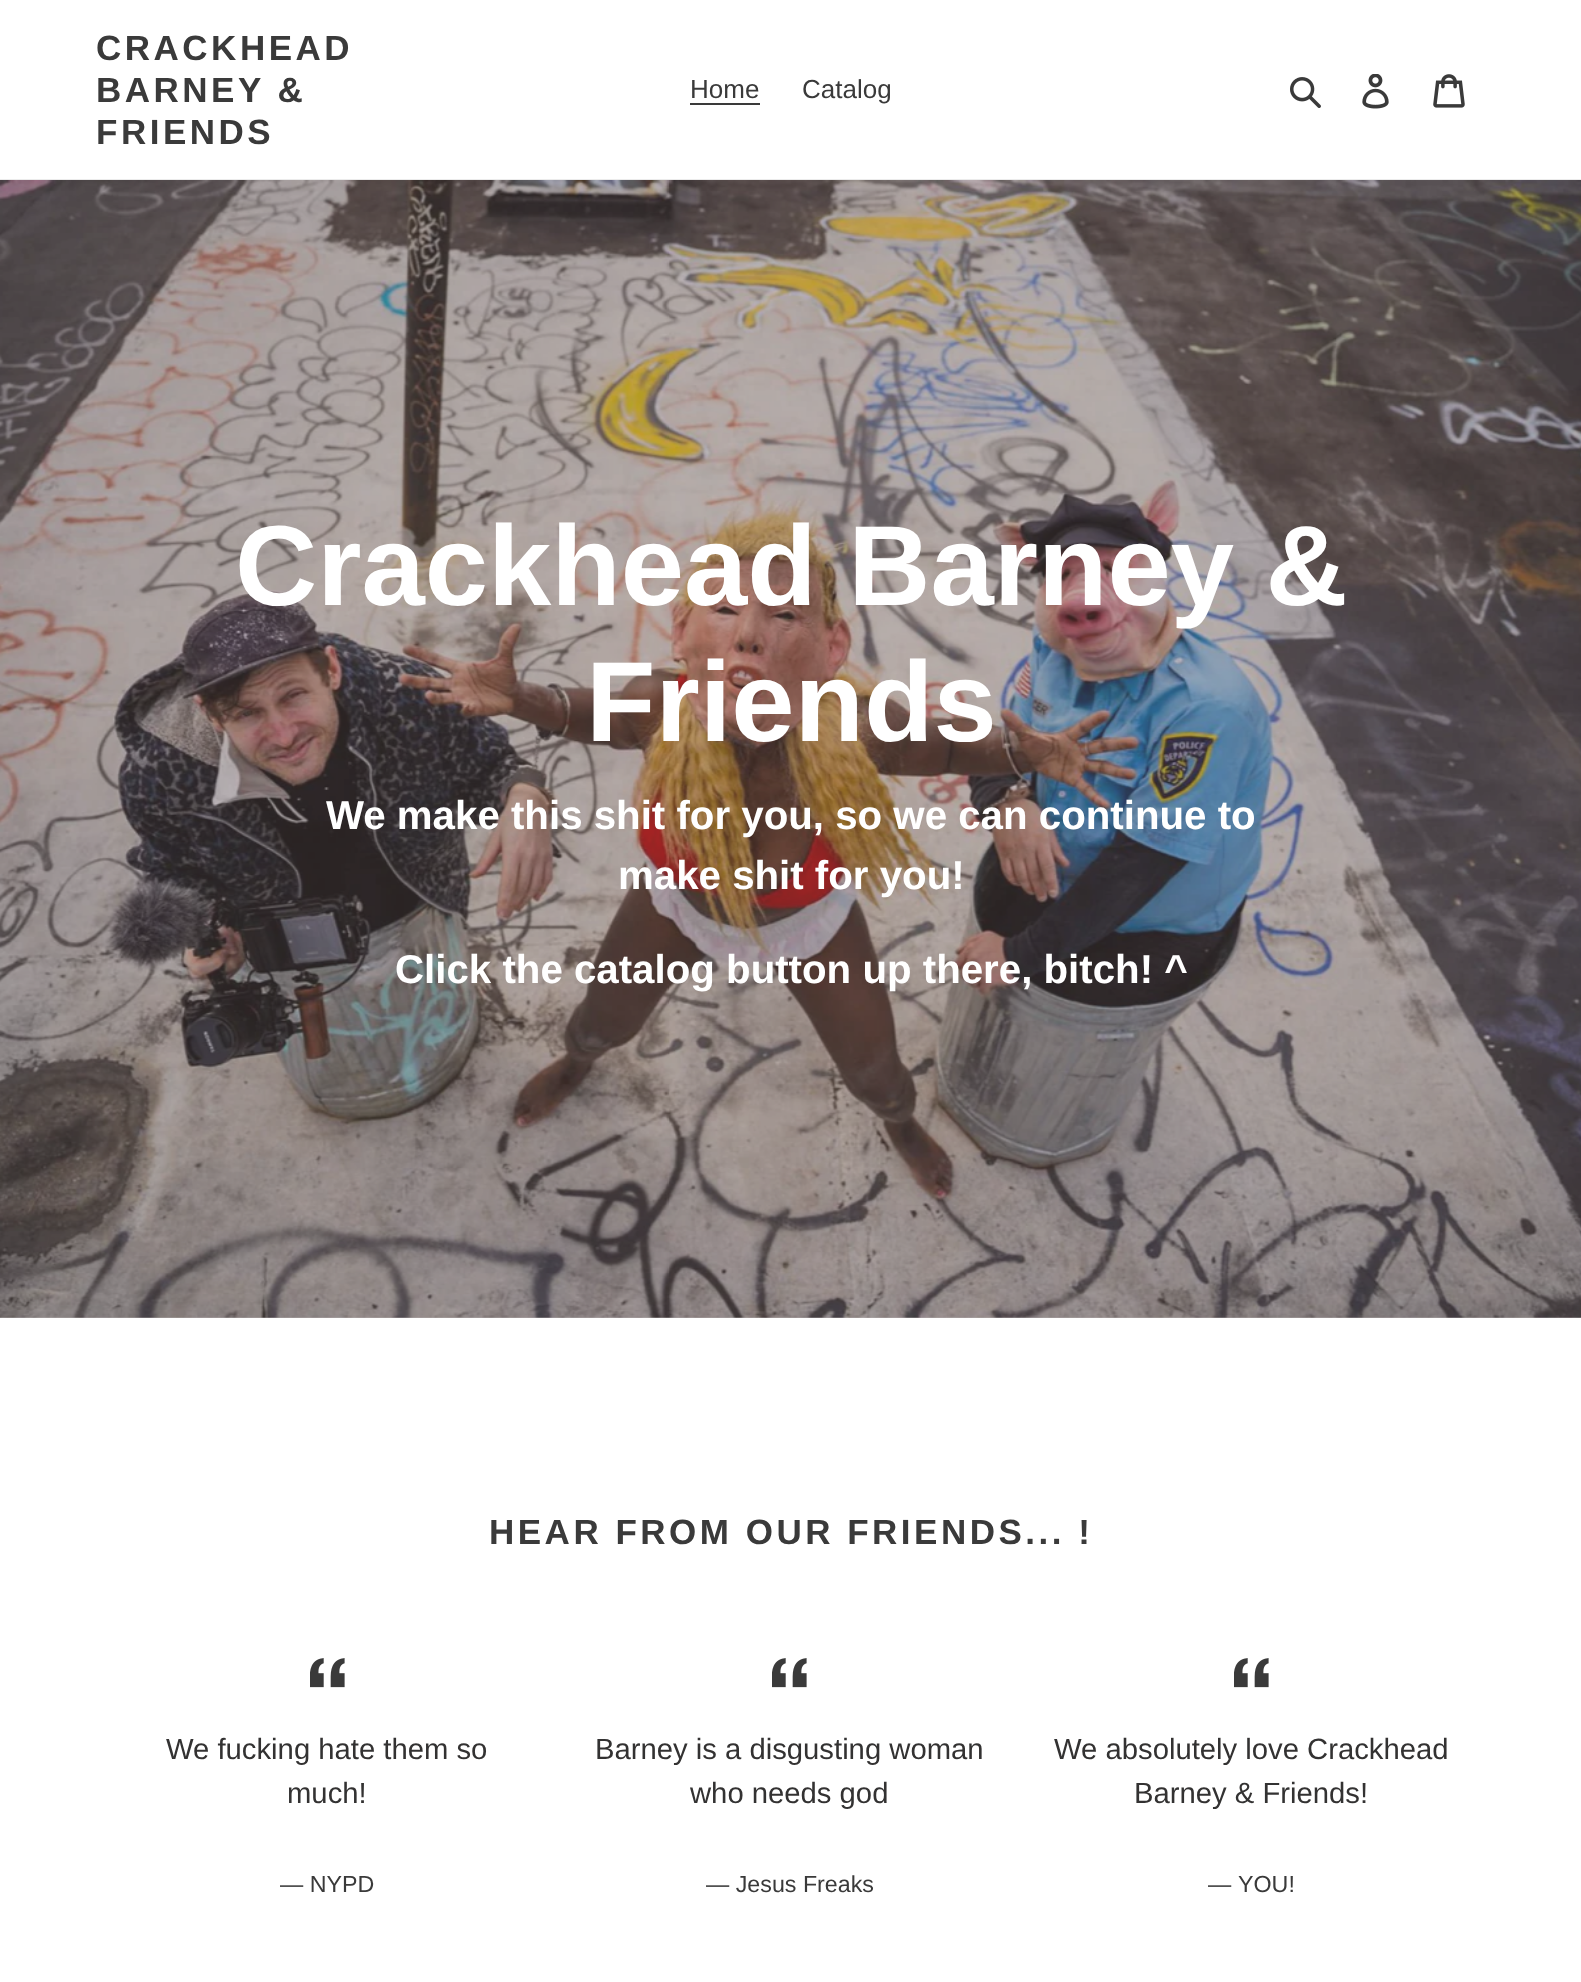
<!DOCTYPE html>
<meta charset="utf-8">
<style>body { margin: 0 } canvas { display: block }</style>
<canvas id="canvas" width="1581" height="1982"></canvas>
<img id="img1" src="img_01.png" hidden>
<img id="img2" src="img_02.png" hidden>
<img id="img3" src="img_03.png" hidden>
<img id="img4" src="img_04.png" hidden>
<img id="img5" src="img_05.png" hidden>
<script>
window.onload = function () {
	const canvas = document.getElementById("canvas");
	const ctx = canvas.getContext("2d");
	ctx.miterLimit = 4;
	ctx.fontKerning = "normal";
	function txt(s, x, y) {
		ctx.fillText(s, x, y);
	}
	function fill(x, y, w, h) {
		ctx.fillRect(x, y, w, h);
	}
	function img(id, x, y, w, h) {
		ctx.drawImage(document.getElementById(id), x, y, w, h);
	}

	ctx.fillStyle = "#FFFFFF";
	fill(0, 0, 1581, 1982);
	ctx.fillStyle = "#EBEBEB";
	fill(0, 179, 1581, 1);
	ctx.fillStyle = "#3A3A3A";
	fill(690, 103, 70, 2);
	img("img1", 1290, 77, 31, 31);
	img("img2", 1362, 74, 27, 35);
	img("img3", 1433, 74, 32, 34);
	ctx.fillStyle = "#BEB7B7";
	fill(0, 1317, 1581, 1);
	img("img4", 0, 180, 1581, 1138);
	img("img5", 310, 1658, 35, 30);
	img("img5", 772, 1658, 35, 30);
	img("img5", 1234, 1658, 35, 30);
	ctx.letterSpacing = "3.5px";
	ctx.font = "bold 35px Liberation Sans";
	ctx.fillStyle = "#3A3A3A";
	txt("CRACKHEAD", 96, 60);
	txt("BARNEY &", 96, 102);
	txt("FRIENDS", 96, 144);
	ctx.letterSpacing = "0px";
	ctx.font = "26px Liberation Sans";
	txt("Home", 690, 98);
	txt("Catalog", 802, 98);
	ctx.font = "bold 113.75px Liberation Sans";
	ctx.fillStyle = "#FFFFFF";
	txt("Crackhead Barney &", 235, 605);
	txt("Friends", 586, 741);
	ctx.font = "bold 40.25px Liberation Sans";
	txt("We make this shit for you, so we can continue to", 326, 829);
	txt("make shit for you!", 618, 889);
	txt("Click the catalog button up there, bitch! ^", 395, 983);
	ctx.letterSpacing = "3.5px";
	ctx.font = "bold 35px Liberation Sans";
	ctx.fillStyle = "#3A3A3A";
	txt("HEAR FROM OUR FRIENDS... !", 489, 1544);
	ctx.letterSpacing = "0px";
	ctx.font = "29.25px Liberation Sans";
	ctx.fillStyle = "#333232";
	txt("We fucking hate them so", 166, 1759);
	txt("much!", 287, 1803);
	ctx.font = "23.25px Liberation Sans";
	ctx.fillStyle = "#3A3A3A";
	txt("— NYPD", 280, 1892);
	ctx.font = "29.25px Liberation Sans";
	ctx.fillStyle = "#333232";
	txt("Barney is a disgusting woman", 595, 1759);
	txt("who needs god", 690, 1803);
	ctx.font = "23.25px Liberation Sans";
	ctx.fillStyle = "#3A3A3A";
	txt("— Jesus Freaks", 706, 1892);
	ctx.font = "29.25px Liberation Sans";
	ctx.fillStyle = "#333232";
	txt("We absolutely love Crackhead", 1054, 1759);
	txt("Barney & Friends!", 1134, 1803);
	ctx.font = "23.25px Liberation Sans";
	ctx.fillStyle = "#3A3A3A";
	txt("—", 1208, 1892);
	txt("YOU!", 1238, 1892);
};
</script>
